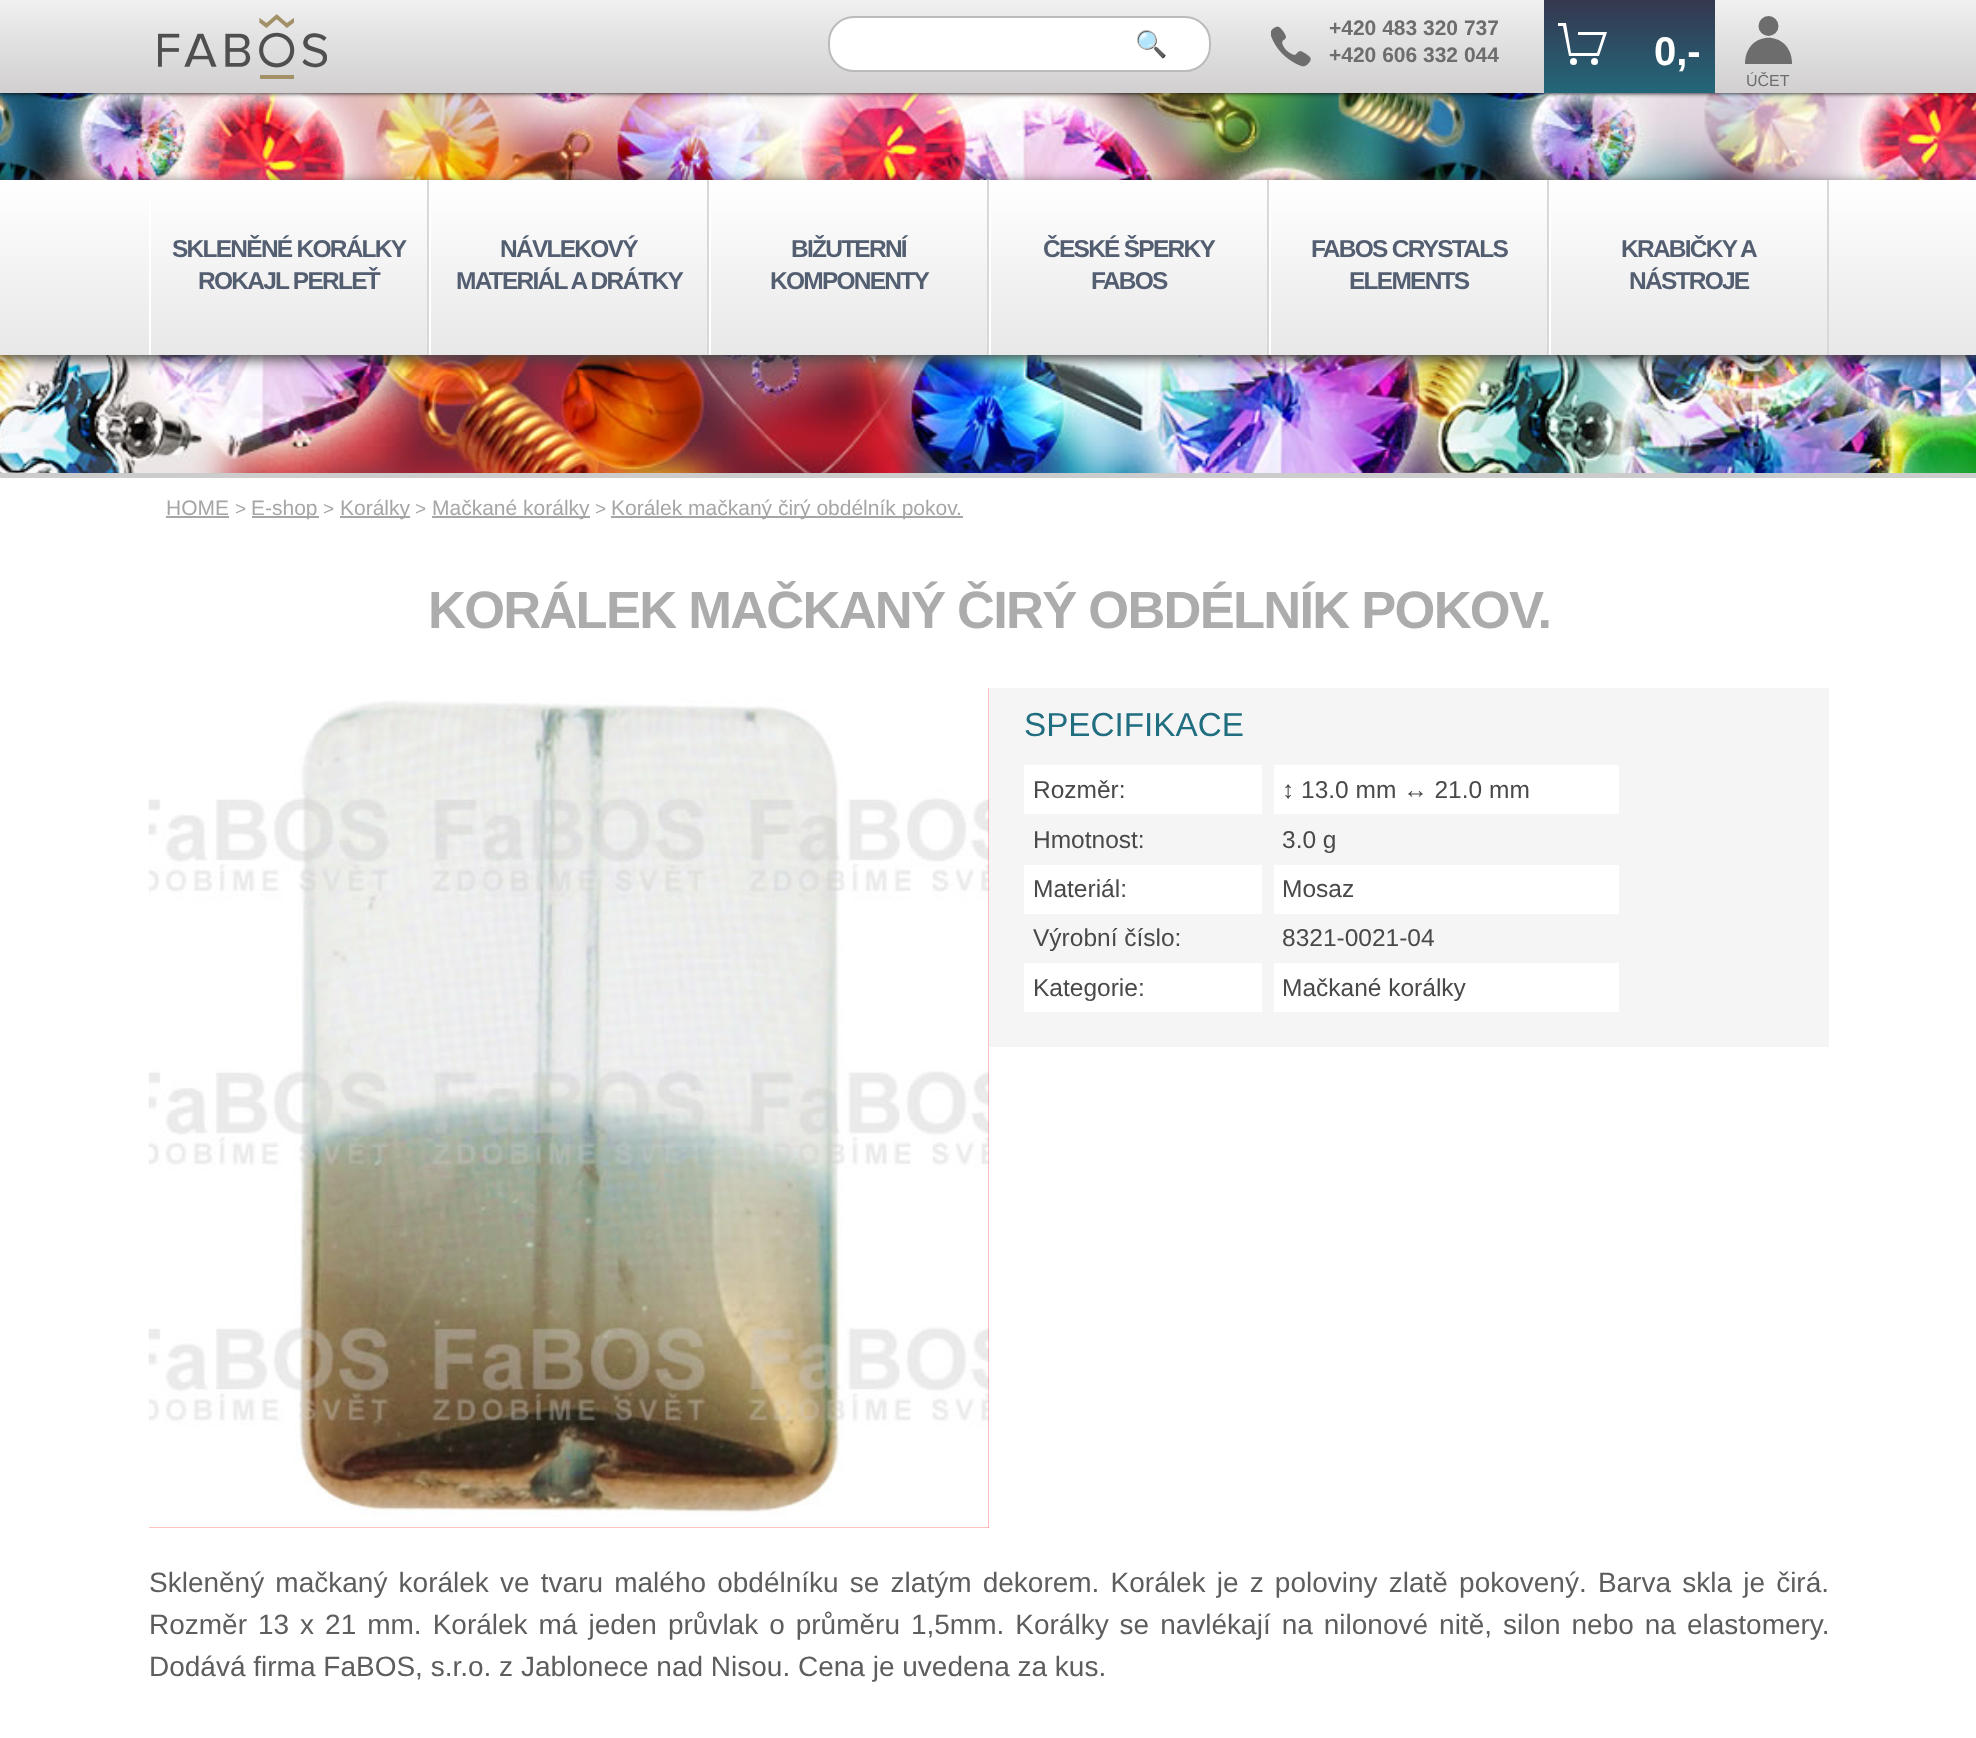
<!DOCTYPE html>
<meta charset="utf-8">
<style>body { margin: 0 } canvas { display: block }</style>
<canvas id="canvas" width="1976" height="1738"></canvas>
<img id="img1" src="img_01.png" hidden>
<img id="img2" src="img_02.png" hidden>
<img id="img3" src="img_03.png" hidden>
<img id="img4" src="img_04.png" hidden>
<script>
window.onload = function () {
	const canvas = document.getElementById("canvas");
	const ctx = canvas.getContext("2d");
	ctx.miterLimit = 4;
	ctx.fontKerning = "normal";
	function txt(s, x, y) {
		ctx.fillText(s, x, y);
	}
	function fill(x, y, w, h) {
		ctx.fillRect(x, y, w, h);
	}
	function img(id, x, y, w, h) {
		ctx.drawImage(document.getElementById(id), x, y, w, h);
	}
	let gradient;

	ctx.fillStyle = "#FFFFFF";
	fill(0, 0, 1976, 1738);
	img("img1", 0, 93, 1976, 380);
	ctx.fillStyle = "#000000";
	ctx.filter = "blur(2.5px)";
	ctx.beginPath();
	ctx.rect(0, 0, 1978, 93);
	ctx.fill();
	ctx.filter = "none";
	gradient = ctx.createLinearGradient(989, 0, 989, 93);
	gradient.addColorStop(0, "#F0F0F0");
	gradient.addColorStop(1, "#D1CFD0");
	ctx.fillStyle = gradient;
	fill(0, 0, 1976, 93);
	img("img2", 158, 14, 169, 65);
	ctx.fillStyle = "#FFFFFF";
	ctx.beginPath();
	ctx.roundRect(829, 17, 381, 54, 25);
	ctx.fill();
	ctx.strokeStyle = "#BBBBBB";
	ctx.lineWidth = 2;
	ctx.stroke();
	img("img3", 1271, 26, 40, 41);
	gradient = ctx.createLinearGradient(1629, 0, 1629, 93);
	gradient.addColorStop(0, "#35374F");
	gradient.addColorStop(1, "#23677A");
	ctx.fillStyle = gradient;
	fill(1544, 0, 171, 93);
	ctx.fillStyle = "#FFFFFF";
	ctx.beginPath();
	ctx.moveTo(1558, 23);
	ctx.lineTo(1558, 26);
	ctx.lineTo(1563, 26);
	ctx.lineTo(1569, 56);
	ctx.lineTo(1599, 56);
	ctx.lineTo(1607, 32);
	ctx.lineTo(1578, 32);
	ctx.lineTo(1578, 35);
	ctx.lineTo(1603, 35);
	ctx.lineTo(1597, 53);
	ctx.lineTo(1571, 53);
	ctx.lineTo(1566, 23);
	ctx.closePath();
	ctx.fill();
	ctx.beginPath();
	ctx.arc(1573.5, 61.5, 3.5, 0, Math.PI * 2);
	ctx.fill();
	ctx.beginPath();
	ctx.arc(1594.5, 61.5, 3.5, 0, Math.PI * 2);
	ctx.fill();
	ctx.fillStyle = "#6D6D6D";
	ctx.beginPath();
	ctx.arc(1768.5, 26, 10, 0, Math.PI * 2);
	ctx.fill();
	ctx.beginPath();
	ctx.moveTo(1792, 64);
	ctx.bezierCurveTo(1792, 29, 1745, 29, 1745, 64);
	ctx.closePath();
	ctx.fill();
	ctx.fillStyle = "#CCCCCC";
	fill(0, 473, 1976, 5);
	ctx.fillStyle = "#444444";
	ctx.filter = "blur(7px)";
	ctx.beginPath();
	ctx.rect(0, 184, 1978, 175);
	ctx.fill();
	ctx.filter = "none";
	gradient = ctx.createLinearGradient(989, 180, 989, 355);
	gradient.addColorStop(0, "#FFFFFF");
	gradient.addColorStop(1, "#E8E8E8");
	ctx.fillStyle = gradient;
	fill(0, 180, 1976, 175);
	ctx.fillStyle = "#D8D8D8";
	fill(427, 180, 2, 175);
	ctx.fillStyle = "#FFFFFF";
	fill(149, 199, 2, 156);
	ctx.fillStyle = "#D8D8D8";
	fill(707, 180, 2, 175);
	ctx.fillStyle = "#FFFFFF";
	fill(429, 199, 2, 156);
	ctx.fillStyle = "#D8D8D8";
	fill(987, 180, 2, 175);
	ctx.fillStyle = "#FFFFFF";
	fill(709, 199, 2, 156);
	ctx.fillStyle = "#D8D8D8";
	fill(1267, 180, 2, 175);
	ctx.fillStyle = "#FFFFFF";
	fill(989, 199, 2, 156);
	ctx.fillStyle = "#D8D8D8";
	fill(1547, 180, 2, 175);
	ctx.fillStyle = "#FFFFFF";
	fill(1269, 199, 2, 156);
	ctx.fillStyle = "#D8D8D8";
	fill(1827, 180, 2, 175);
	ctx.fillStyle = "#FFFFFF";
	fill(1549, 199, 2, 156);
	ctx.fillStyle = "#A6A6A6";
	fill(166, 516, 63, 2);
	fill(252, 516, 67, 2);
	fill(340, 516, 70, 2);
	fill(432, 516, 158, 2);
	fill(611, 516, 352, 2);
	ctx.fillStyle = "#FF0000";
	fill(149, 688, 840, 840);
	img("img4", 148, 688, 841, 840);
	ctx.fillStyle = "#F5F5F5";
	fill(989, 688, 840, 359);
	ctx.fillStyle = "#FFFFFF";
	fill(1024, 765, 238, 49);
	fill(1274, 765, 345, 49);
	fill(1024, 865, 238, 49);
	fill(1274, 865, 345, 49);
	fill(1024, 963, 238, 49);
	fill(1274, 963, 345, 49);
	ctx.font = "26px Noto Color Emoji";
	ctx.fillStyle = "#757575";
	txt("🔍", 1135, 53);
	ctx.font = "bold 21px Liberation Sans";
	ctx.fillStyle = "#6D6D6D";
	txt("+420 483 320 737", 1329, 35);
	txt("+420 606 332 044", 1329, 62);
	ctx.font = "bold 40px Liberation Sans";
	ctx.fillStyle = "#FFFFFF";
	txt("0,-", 1654, 65);
	ctx.font = "16px Liberation Sans";
	ctx.fillStyle = "#6D6D6D";
	txt("ÚČET", 1746, 86);
	ctx.letterSpacing = "-1.75px";
	ctx.font = "bold 24.5px Liberation Sans";
	ctx.fillStyle = "#535E71";
	txt("SKLENĚNÉ KORÁLKY", 172, 257);
	txt("ROKAJL PERLEŤ", 198, 289);
	txt("NÁVLEKOVÝ", 500, 257);
	txt("MATERIÁL A DRÁTKY", 456, 289);
	txt("BIŽUTERNÍ", 791, 257);
	txt("KOMPONENTY", 770, 289);
	txt("ČESKÉ ŠPERKY", 1043, 257);
	txt("FABOS", 1091, 289);
	txt("FABOS CRYSTALS", 1311, 257);
	txt("ELEMENTS", 1349, 289);
	txt("KRABIČKY A", 1621, 257);
	txt("NÁSTROJE", 1629, 289);
	ctx.letterSpacing = "0px";
	ctx.font = "21px Liberation Sans";
	ctx.fillStyle = "#A6A6A6";
	txt("HOME", 166, 515);
	ctx.font = "19px Liberation Sans";
	txt(">", 235, 515);
	ctx.font = "21px Liberation Sans";
	txt("E-shop", 251, 515);
	ctx.font = "19px Liberation Sans";
	txt(">", 323, 515);
	ctx.font = "21px Liberation Sans";
	txt("Korálky", 340, 515);
	ctx.font = "19px Liberation Sans";
	txt(">", 415, 515);
	ctx.font = "21px Liberation Sans";
	txt("Mačkané korálky", 432, 515);
	ctx.font = "19px Liberation Sans";
	txt(">", 595, 515);
	ctx.font = "21px Liberation Sans";
	txt("Korálek mačkaný čirý obdélník pokov.", 611, 515);
	ctx.letterSpacing = "-1.75px";
	ctx.font = "bold 52.5px Liberation Sans";
	ctx.fillStyle = "#ACACAC";
	txt("KORÁLEK MAČKANÝ ČIRÝ OBDÉLNÍK POKOV.", 428, 628);
	ctx.letterSpacing = "0px";
	ctx.font = "33.25px Liberation Sans";
	ctx.fillStyle = "#216E80";
	txt("SPECIFIKACE", 1024, 736);
	ctx.font = "24.5px Liberation Sans";
	ctx.fillStyle = "#494949";
	txt("Rozměr:", 1033, 798);
	txt("↕ 13.0 mm ↔ 21.0 mm", 1282, 798);
	txt("Hmotnost:", 1033, 848);
	txt("3.0 g", 1282, 848);
	txt("Materiál:", 1033, 897);
	txt("Mosaz", 1282, 897);
	txt("Výrobní číslo:", 1033, 946);
	txt("8321-0021-04", 1282, 946);
	txt("Kategorie:", 1033, 996);
	txt("Mačkané korálky", 1282, 996);
	ctx.wordSpacing = "3.4px";
	ctx.font = "28px Liberation Sans";
	ctx.fillStyle = "#5D5D5D";
	txt("Skleněný mačkaný korálek ve tvaru malého obdélníku se zlatým dekorem. Korálek je z poloviny zlatě pokovený. Barva skla je čirá.", 149, 1592);
	ctx.wordSpacing = "3.2px";
	txt("Rozměr 13 x 21 mm. Korálek má jeden průvlak o průměru 1,5mm. Korálky se navlékají na nilonové nitě, silon nebo na elastomery.", 149, 1634);
	ctx.wordSpacing = "0px";
	txt("Dodává firma FaBOS, s.r.o. z Jablonece nad Nisou. Cena je uvedena za kus.", 149, 1676);
};
</script>
